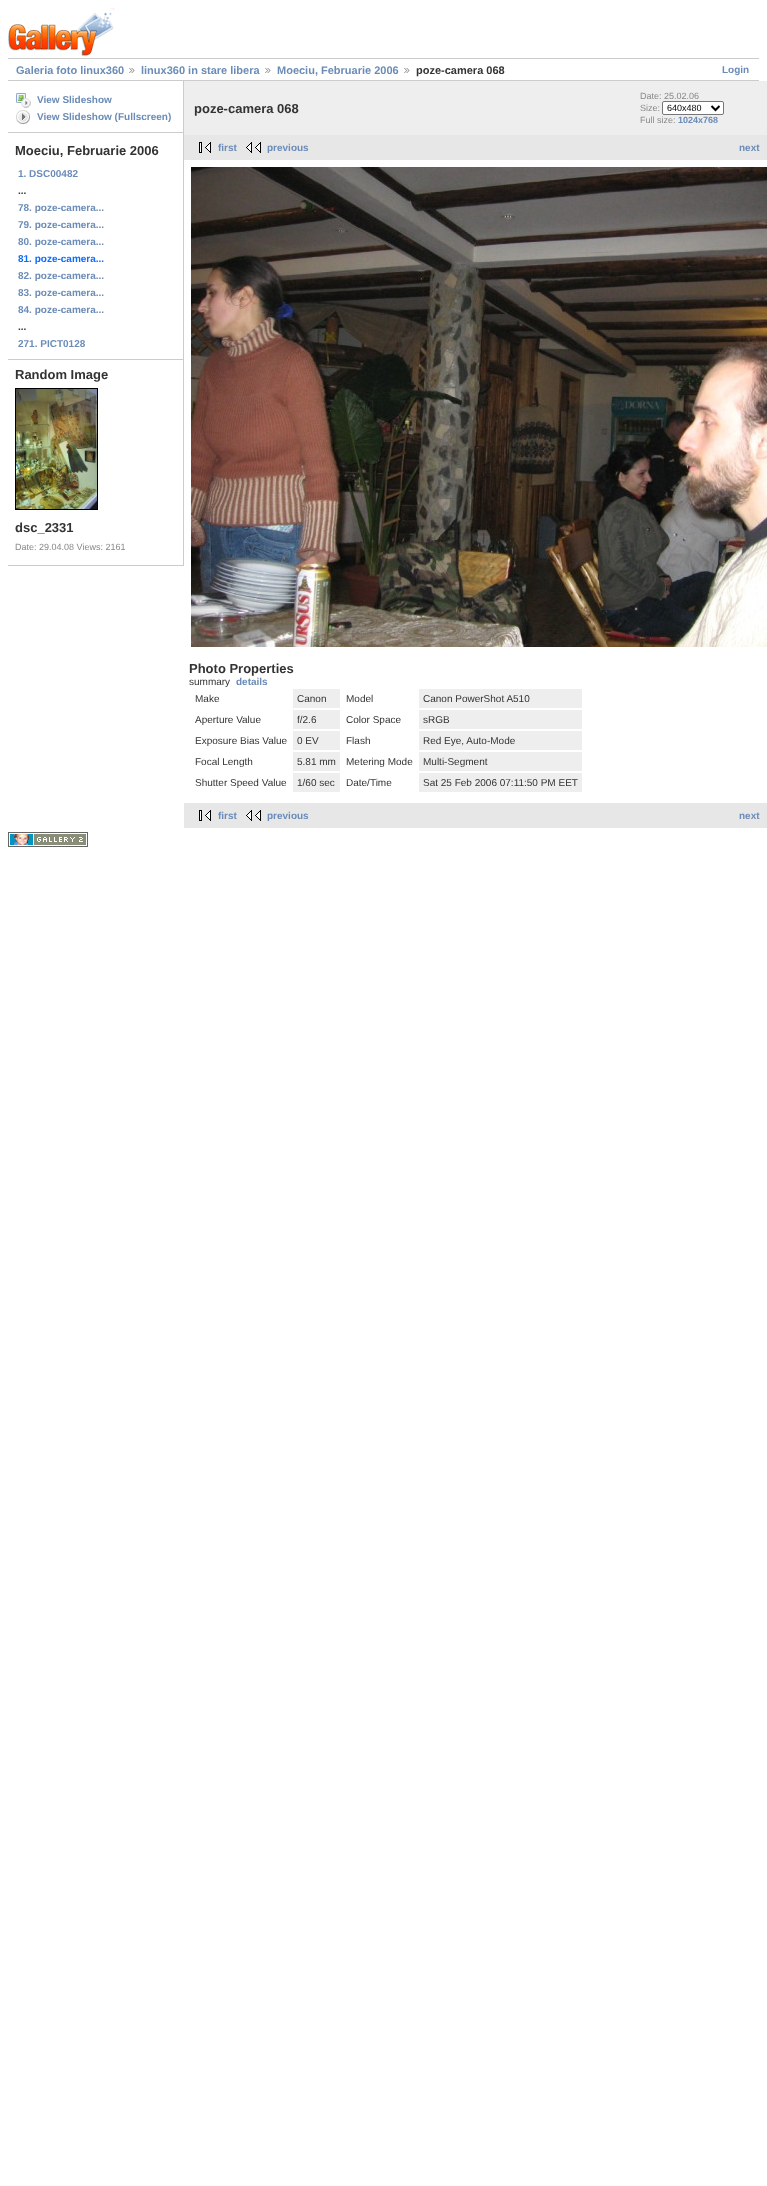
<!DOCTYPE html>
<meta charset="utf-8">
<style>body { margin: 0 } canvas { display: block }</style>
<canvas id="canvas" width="767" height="2186"></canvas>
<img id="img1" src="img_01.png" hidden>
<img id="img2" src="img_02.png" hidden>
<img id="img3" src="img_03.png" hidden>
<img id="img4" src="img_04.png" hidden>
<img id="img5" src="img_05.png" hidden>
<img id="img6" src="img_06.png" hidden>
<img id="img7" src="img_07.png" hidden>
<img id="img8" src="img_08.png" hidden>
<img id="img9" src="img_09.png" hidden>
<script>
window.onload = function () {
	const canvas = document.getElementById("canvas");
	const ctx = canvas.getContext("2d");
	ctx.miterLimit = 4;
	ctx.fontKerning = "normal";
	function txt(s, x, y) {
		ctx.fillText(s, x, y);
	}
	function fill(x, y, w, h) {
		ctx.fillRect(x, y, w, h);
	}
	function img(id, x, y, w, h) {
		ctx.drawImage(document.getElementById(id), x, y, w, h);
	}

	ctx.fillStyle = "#FFFFFF";
	fill(0, 0, 767, 2186);
	img("img1", 8, 8, 107, 48);
	ctx.fillStyle = "#CCCCCC";
	fill(8, 58, 751, 1);
	fill(8, 80, 751, 1);
	img("img2", 129, 68, 6, 5);
	img("img2", 265, 68, 6, 5);
	img("img2", 404, 68, 6, 5);
	fill(183, 81, 1, 485);
	fill(8, 132, 175, 1);
	img("img3", 16, 93, 15, 15);
	img("img4", 16, 110, 14, 14);
	fill(8, 359, 175, 1);
	fill(8, 565, 175, 1);
	ctx.strokeStyle = "#000000";
	ctx.strokeRect(15.5, 388.5, 82, 121);
	img("img5", 16, 389, 81, 120);
	ctx.fillStyle = "#EEEEEE";
	fill(184, 81, 583, 54);
	ctx.fillStyle = "#FFFFFF";
	ctx.beginPath();
	ctx.roundRect(662.5, 101.5, 61, 13, 1.5);
	ctx.fill();
	ctx.strokeStyle = "#767676";
	ctx.stroke();
	ctx.beginPath();
	ctx.moveTo(711.5, 106);
	ctx.lineTo(715.5, 110);
	ctx.lineTo(719.5, 106);
	ctx.strokeStyle = "#000000";
	ctx.lineWidth = 2;
	ctx.stroke();
	ctx.fillStyle = "#E7E7E7";
	fill(184, 135, 583, 25);
	img("img6", 199, 142, 12, 11);
	img("img7", 246, 142, 15, 11);
	img("img8", 191, 167, 576, 480);
	ctx.fillStyle = "#EEEEEE";
	fill(293, 689, 47, 19);
	fill(419, 689, 163, 19);
	fill(293, 710, 47, 19);
	fill(419, 710, 163, 19);
	fill(293, 731, 47, 19);
	fill(419, 731, 163, 19);
	fill(293, 752, 47, 19);
	fill(419, 752, 163, 19);
	fill(293, 773, 47, 19);
	fill(419, 773, 163, 19);
	ctx.fillStyle = "#E7E7E7";
	fill(184, 803, 583, 25);
	img("img6", 199, 810, 12, 11);
	img("img7", 246, 810, 15, 11);
	img("img9", 8, 832, 80, 15);
	ctx.font = "bold 11px Liberation Sans";
	ctx.fillStyle = "#6B8CB7";
	txt("Galeria foto linux360", 16, 74);
	txt("linux360 in stare libera", 141, 74);
	txt("Moeciu, Februarie 2006", 277, 74);
	ctx.fillStyle = "#333333";
	txt("poze-camera 068", 416, 74);
	ctx.font = "bold 10px Liberation Sans";
	ctx.fillStyle = "#6B8CB7";
	txt("Login", 722, 73);
	txt("View Slideshow", 37, 103);
	txt("View Slideshow (Fullscreen)", 37, 120);
	ctx.font = "bold 13px Liberation Sans";
	ctx.fillStyle = "#333333";
	txt("Moeciu, Februarie 2006", 15, 155);
	ctx.font = "bold 10px Liberation Sans";
	ctx.fillStyle = "#6B8CB7";
	txt("1. DSC00482", 18, 177);
	ctx.fillStyle = "#333333";
	txt("...", 18, 194);
	ctx.fillStyle = "#6B8CB7";
	txt("78. poze-camera...", 18, 211);
	txt("79. poze-camera...", 18, 228);
	txt("80. poze-camera...", 18, 245);
	ctx.fillStyle = "#0B6CFF";
	txt("81. poze-camera...", 18, 262);
	ctx.fillStyle = "#6B8CB7";
	txt("82. poze-camera...", 18, 279);
	txt("83. poze-camera...", 18, 296);
	txt("84. poze-camera...", 18, 313);
	ctx.fillStyle = "#333333";
	txt("...", 18, 330);
	ctx.fillStyle = "#6B8CB7";
	txt("271. PICT0128", 18, 347);
	ctx.font = "bold 13px Liberation Sans";
	ctx.fillStyle = "#333333";
	txt("Random Image", 15, 379);
	txt("dsc_2331", 15, 532);
	ctx.font = "9px Liberation Sans";
	ctx.fillStyle = "#888888";
	txt("Date: 29.04.08 Views: 2161", 15, 550);
	ctx.font = "bold 13px Liberation Sans";
	ctx.fillStyle = "#333333";
	txt("poze-camera 068", 194, 113);
	ctx.font = "9px Liberation Sans";
	ctx.fillStyle = "#888888";
	txt("Date: 25.02.06", 640, 99);
	txt("Size:", 640, 111);
	ctx.fillStyle = "#000000";
	txt("640x480", 667, 111);
	ctx.fillStyle = "#888888";
	txt("Full size:", 640, 123);
	ctx.font = "bold 9px Liberation Sans";
	ctx.fillStyle = "#6B8CB7";
	txt("1024x768", 678, 123);
	ctx.font = "bold 10px Liberation Sans";
	txt("first", 218, 151);
	txt("previous", 267, 151);
	txt("next", 739, 151);
	ctx.font = "bold 13px Liberation Sans";
	ctx.fillStyle = "#333333";
	txt("Photo Properties", 189, 673);
	ctx.font = "10px Liberation Sans";
	txt("summary", 189, 685);
	ctx.font = "bold 10px Liberation Sans";
	ctx.fillStyle = "#6B8CB7";
	txt("details", 236, 685);
	ctx.font = "10px Liberation Sans";
	ctx.fillStyle = "#333333";
	txt("Make", 195, 702);
	txt("Canon", 297, 702);
	txt("Model", 346, 702);
	txt("Canon PowerShot A510", 423, 702);
	txt("Aperture Value", 195, 723);
	txt("f/2.6", 297, 723);
	txt("Color Space", 346, 723);
	txt("sRGB", 423, 723);
	txt("Exposure Bias Value", 195, 744);
	txt("0 EV", 297, 744);
	txt("Flash", 346, 744);
	txt("Red Eye, Auto-Mode", 423, 744);
	txt("Focal Length", 195, 765);
	txt("5.81 mm", 297, 765);
	txt("Metering Mode", 346, 765);
	txt("Multi-Segment", 423, 765);
	txt("Shutter Speed Value", 195, 786);
	txt("1/60 sec", 297, 786);
	txt("Date/Time", 346, 786);
	txt("Sat 25 Feb 2006 07:11:50 PM EET", 423, 786);
	ctx.font = "bold 10px Liberation Sans";
	ctx.fillStyle = "#6B8CB7";
	txt("first", 218, 819);
	txt("previous", 267, 819);
	txt("next", 739, 819);
};
</script>
